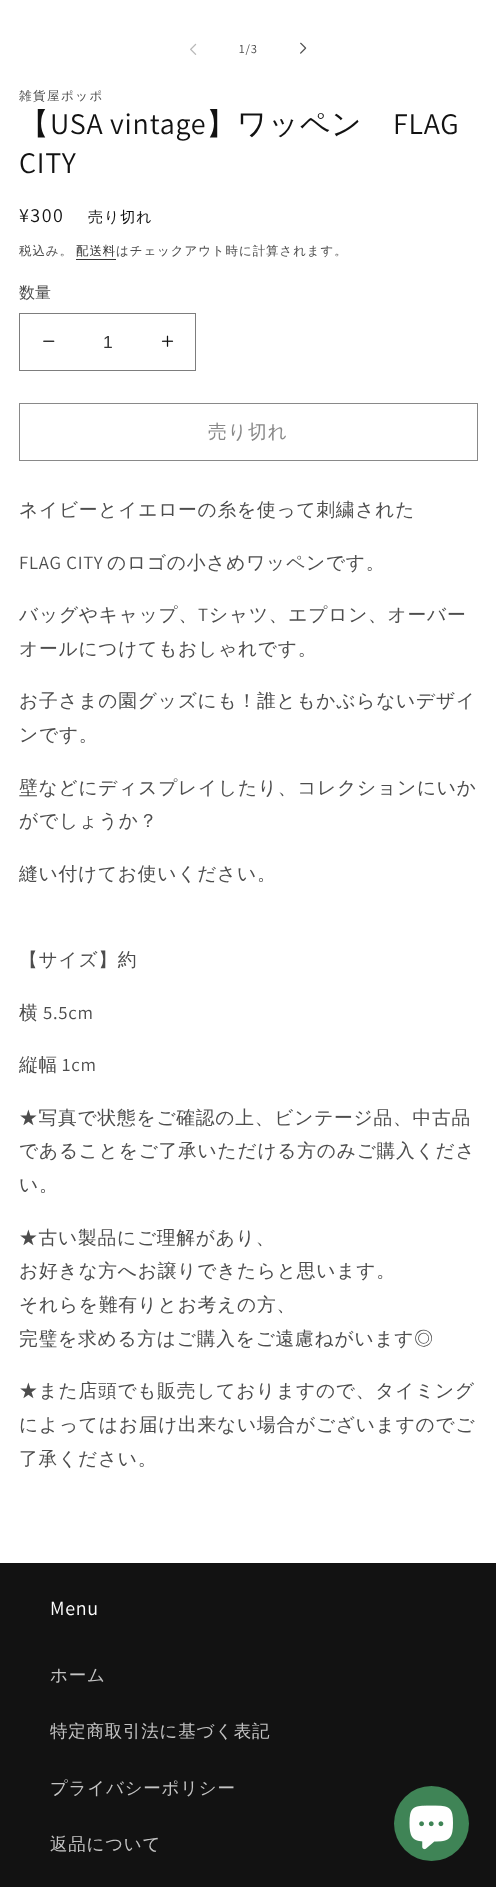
<!DOCTYPE html>
<meta charset="utf-8">
<style>body { margin: 0 } canvas { display: block }</style>
<canvas id="canvas" width="496" height="1887"></canvas>
<img id="img1" src="img_01.png" hidden>
<img id="img2" src="img_02.png" hidden>
<img id="img3" src="img_03.png" hidden>
<img id="img4" src="img_04.png" hidden>
<img id="img5" src="img_05.png" hidden>
<script>
window.onload = function () {
	const canvas = document.getElementById("canvas");
	const ctx = canvas.getContext("2d");
	ctx.miterLimit = 4;
	ctx.fontKerning = "normal";
	function txt(s, x, y) {
		ctx.fillText(s, x, y);
	}
	function fill(x, y, w, h) {
		ctx.fillRect(x, y, w, h);
	}
	function img(id, x, y, w, h) {
		ctx.drawImage(document.getElementById(id), x, y, w, h);
	}

	ctx.fillStyle = "#FFFFFF";
	fill(0, 0, 496, 1887);
	img("img1", 190, 43, 7, 12);
	img("img2", 300, 42, 7, 12);
	ctx.fillStyle = "#363636";
	fill(76, 259, 40, 1);
	img("img3", 43, 340, 12, 2);
	img("img4", 161, 335, 13, 12);
	ctx.strokeStyle = "#7D7D7D";
	ctx.strokeRect(19.5, 313.5, 176, 57);
	ctx.strokeStyle = "#898989";
	ctx.strokeRect(19.5, 403.5, 458, 57);
	ctx.fillStyle = "#121212";
	fill(0, 1563, 496, 324);
	ctx.fillStyle = "#3F8456";
	ctx.beginPath();
	ctx.arc(431.5, 1823.5, 37.5, 0, Math.PI * 2);
	ctx.fill();
	img("img5", 409, 1805, 44, 45);
	ctx.letterSpacing = "0.9px";
	ctx.font = "12.5px Assistant";
	ctx.fillStyle = "#4D4D4D";
	txt("1/3", 239, 53);
	ctx.letterSpacing = "1.5px";
	ctx.font = "500 12.5px WenQuanYi Zen Hei";
	txt("雑貨屋ポッポ", 19, 100);
	ctx.letterSpacing = "0.75px";
	ctx.font = "500 30px WenQuanYi Zen Hei";
	ctx.fillStyle = "#121212";
	txt("【", 19, 134);
	ctx.font = "30px Assistant";
	txt("USA vintage", 50, 134);
	ctx.font = "500 30px WenQuanYi Zen Hei";
	txt("】ワッペン", 206, 134);
	ctx.font = "30px Assistant";
	txt("FLAG", 393, 134);
	txt("CITY", 19, 173);
	ctx.letterSpacing = "1.5px";
	ctx.font = "20px Assistant";
	txt("¥300", 19, 222);
	ctx.letterSpacing = "1px";
	ctx.font = "500 15px WenQuanYi Zen Hei";
	txt("売り切れ", 88, 222);
	ctx.letterSpacing = "0.9px";
	ctx.font = "500 12.5px WenQuanYi Zen Hei";
	ctx.fillStyle = "#4D4D4D";
	txt("税込み。", 19, 255);
	ctx.fillStyle = "#363636";
	txt("配送料", 76, 255);
	ctx.fillStyle = "#4D4D4D";
	txt("はチェックアウト時に計算されます。", 116, 255);
	ctx.letterSpacing = "0px";
	ctx.font = "500 16px WenQuanYi Zen Hei";
	txt("数量", 19, 298);
	ctx.font = "17.5px Liberation Sans";
	ctx.fillStyle = "#363636";
	txt("1", 103, 348);
	ctx.letterSpacing = "1px";
	ctx.font = "500 18.75px WenQuanYi Zen Hei";
	ctx.fillStyle = "#898989";
	txt("売り切れ", 208, 438);
	ctx.letterSpacing = "0.75px";
	ctx.fillStyle = "#4D4D4D";
	txt("ネイビーとイエローの糸を使って刺繍された", 19, 516);
	ctx.font = "18.75px Assistant";
	txt("FLAG CITY", 19, 569);
	ctx.font = "500 18.75px WenQuanYi Zen Hei";
	txt("のロゴの小さめワッペンです。", 107, 569);
	txt("バッグやキャップ、", 19, 621);
	ctx.font = "18.75px Assistant";
	txt("T", 198, 621);
	ctx.font = "500 18.75px WenQuanYi Zen Hei";
	txt("シャツ、エプロン、オーバー", 209, 621);
	txt("オールにつけてもおしゃれです。", 19, 655);
	txt("お子さまの園グッズにも！誰ともかぶらないデザイ", 19, 707);
	txt("ンです。", 19, 741);
	txt("壁などにディスプレイしたり、コレクションにいか", 19, 794);
	txt("がでしょうか？", 19, 827);
	txt("縫い付けてお使いください。", 19, 880);
	txt("【サイズ】約", 19, 966);
	txt("横", 19, 1019);
	ctx.font = "18.75px Assistant";
	txt("5.5cm", 43, 1019);
	ctx.font = "500 18.75px WenQuanYi Zen Hei";
	txt("縦幅", 19, 1071);
	ctx.font = "18.75px Assistant";
	txt("1cm", 62, 1071);
	ctx.font = "500 18.75px WenQuanYi Zen Hei";
	txt("★写真で状態をご確認の上、ビンテージ品、中古品", 19, 1124);
	txt("であることをご了承いただける方のみご購入くださ", 19, 1157);
	txt("い。", 19, 1191);
	txt("★古い製品にご理解があり、", 19, 1244);
	txt("お好きな方へお譲りできたらと思います。", 19, 1277);
	txt("それらを難有りとお考えの方、", 19, 1311);
	txt("完璧を求める方はご購入をご遠慮ねがいます◎", 19, 1345);
	txt("★また店頭でも販売しておりますので、タイミング", 19, 1397);
	txt("によってはお届け出来ない場合がございますのでご", 19, 1431);
	txt("了承ください。", 19, 1465);
	ctx.font = "20px Assistant";
	ctx.fillStyle = "#FFFFFF";
	txt("Menu", 50, 1615);
	ctx.font = "500 17.5px WenQuanYi Zen Hei";
	ctx.fillStyle = "#C4C4C4";
	txt("ホーム", 50, 1681);
	txt("特定商取引法に基づく表記", 50, 1737);
	txt("プライバシーポリシー", 50, 1794);
	txt("返品について", 50, 1850);
};
</script>
